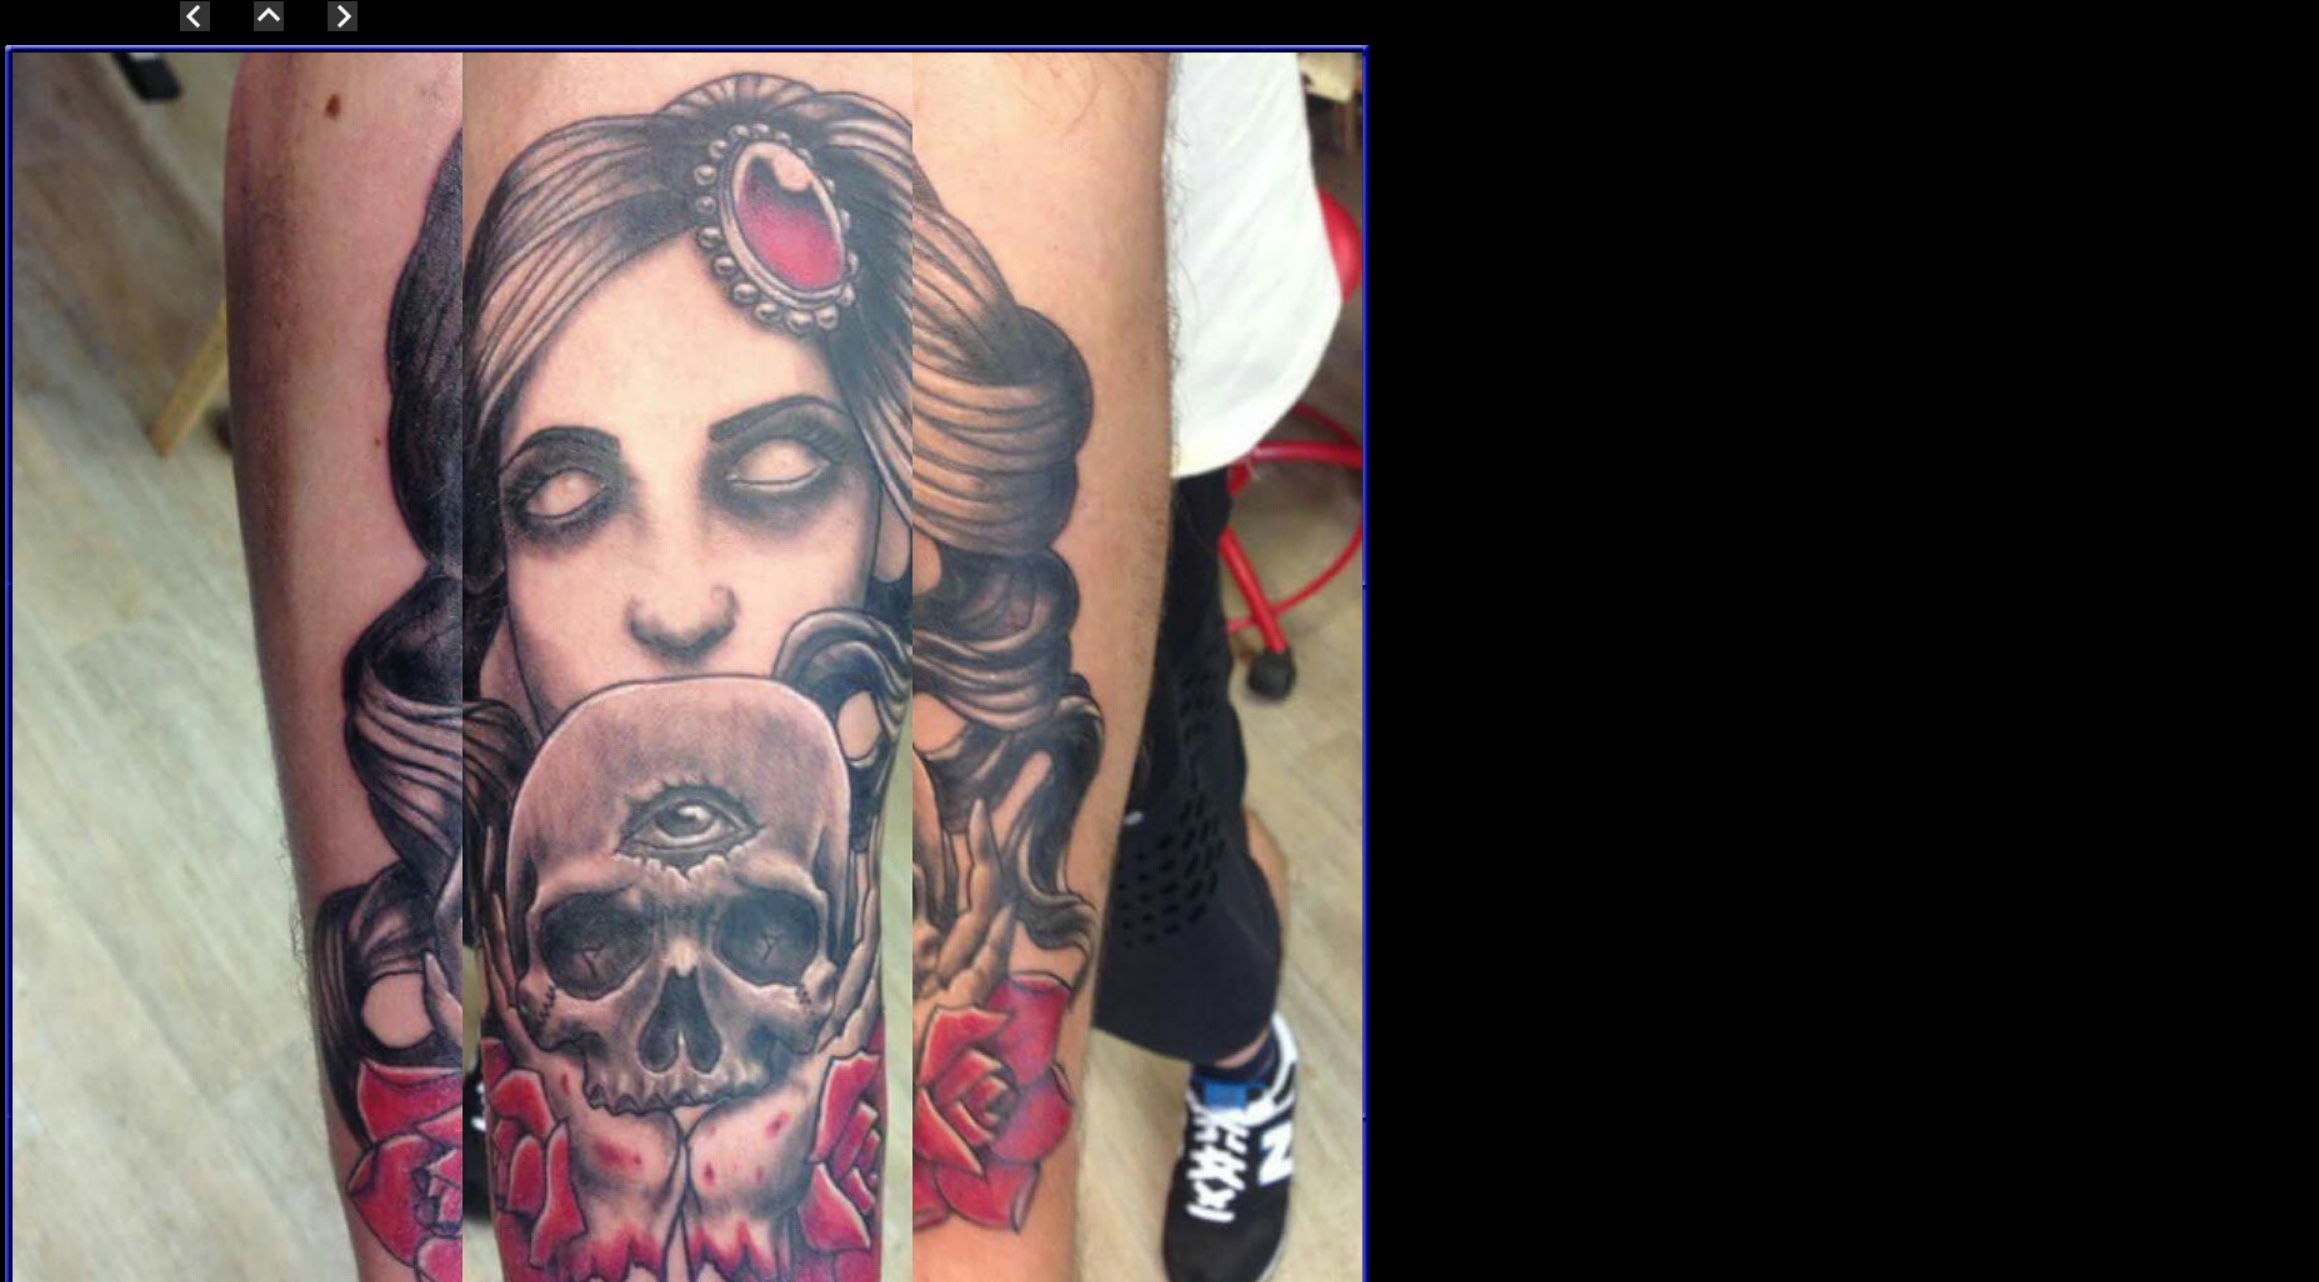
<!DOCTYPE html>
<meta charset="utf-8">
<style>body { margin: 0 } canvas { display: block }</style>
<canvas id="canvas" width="2319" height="1282"></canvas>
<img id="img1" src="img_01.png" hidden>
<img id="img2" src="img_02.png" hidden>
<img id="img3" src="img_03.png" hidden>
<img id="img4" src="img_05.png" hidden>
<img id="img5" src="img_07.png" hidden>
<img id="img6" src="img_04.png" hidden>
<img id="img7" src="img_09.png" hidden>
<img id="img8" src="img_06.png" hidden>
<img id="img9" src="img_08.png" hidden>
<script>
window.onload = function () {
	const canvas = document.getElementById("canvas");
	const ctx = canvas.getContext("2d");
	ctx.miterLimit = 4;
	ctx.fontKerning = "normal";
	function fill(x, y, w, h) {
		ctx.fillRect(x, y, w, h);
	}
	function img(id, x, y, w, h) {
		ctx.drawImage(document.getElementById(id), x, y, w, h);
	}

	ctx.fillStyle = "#000000";
	fill(0, 0, 2319, 1282);
	img("img1", 180, 1, 30, 31);
	img("img2", 253, 1, 31, 31);
	img("img3", 327, 1, 31, 31);
	img("img4", 12, 45, 1351, 8);
	img("img5", 5, 52, 8, 1230);
	img("img6", 5, 45, 8, 8);
	img("img7", 1362, 52, 8, 1230);
	img("img8", 1362, 45, 8, 8);
	img("img9", 12, 52, 1351, 1230);
};
</script>
